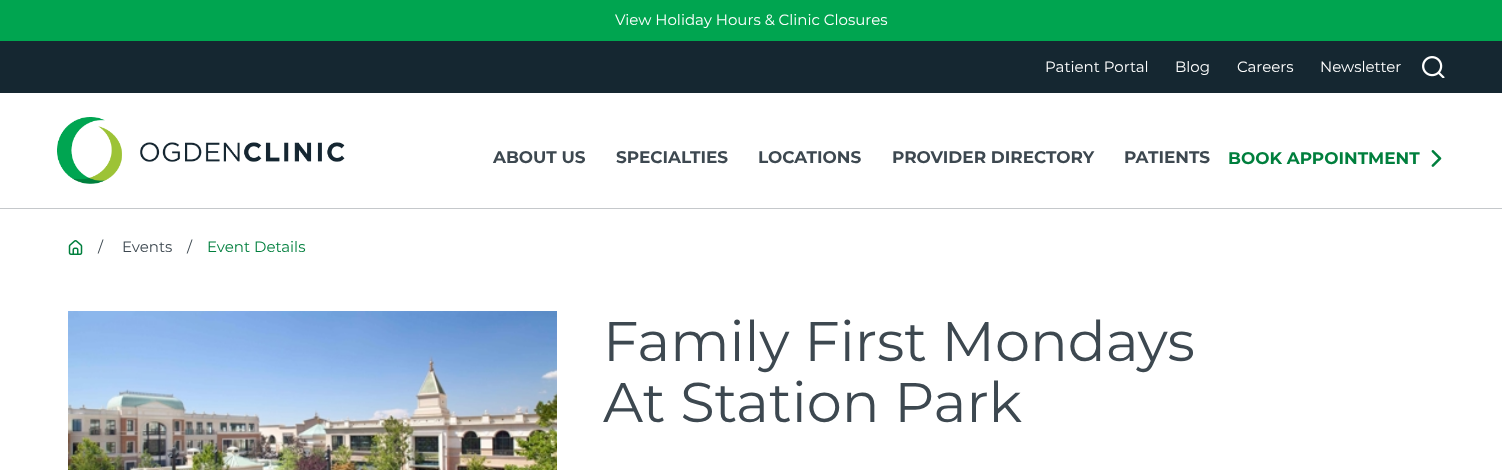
<!DOCTYPE html>
<meta charset="utf-8">
<style>body { margin: 0 } canvas { display: block }</style>
<canvas id="canvas" width="1502" height="470"></canvas>
<img id="img1" src="img_01.png" hidden>
<img id="img2" src="img_02.png" hidden>
<img id="img3" src="img_03.png" hidden>
<img id="img4" src="img_04.png" hidden>
<img id="img5" src="img_05.png" hidden>
<script>
window.onload = function () {
	const canvas = document.getElementById("canvas");
	const ctx = canvas.getContext("2d");
	ctx.miterLimit = 4;
	ctx.fontKerning = "normal";
	function txt(s, x, y) {
		ctx.fillText(s, x, y);
	}
	function fill(x, y, w, h) {
		ctx.fillRect(x, y, w, h);
	}
	function img(id, x, y, w, h) {
		ctx.drawImage(document.getElementById(id), x, y, w, h);
	}

	ctx.fillStyle = "#FFFFFF";
	fill(0, 0, 1502, 470);
	ctx.fillStyle = "#C5C8CB";
	fill(0, 208, 1502, 1);
	ctx.fillStyle = "#00A550";
	fill(0, 0, 1502, 41);
	ctx.fillStyle = "#152731";
	fill(0, 41, 1502, 52);
	img("img1", 1422, 56, 23, 22);
	img("img2", 57, 117, 288, 67);
	img("img3", 1431, 150, 11, 17);
	img("img4", 68, 240, 15, 15);
	img("img5", 68, 311, 489, 159);
	ctx.font = "15px Montserrat";
	ctx.fillStyle = "#FFFFFF";
	txt("View Holiday Hours & Clinic Closures", 615, 25);
	txt("Patient Portal", 1045, 72);
	txt("Blog", 1175, 72);
	txt("Careers", 1237, 72);
	txt("Newsletter", 1320, 72);
	ctx.font = "bold 16.9px Montserrat";
	ctx.fillStyle = "#3D4850";
	txt("ABOUT US", 493, 163);
	txt("SPECIALTIES", 616, 163);
	txt("LOCATIONS", 758, 163);
	txt("PROVIDER DIRECTORY", 892, 163);
	txt("PATIENTS", 1124, 163);
	ctx.fillStyle = "#007F3D";
	txt("BOOK APPOINTMENT", 1228, 164);
	ctx.font = "15px Montserrat";
	ctx.fillStyle = "#3D4850";
	txt("/", 98, 252);
	txt("Events", 122, 252);
	txt("/", 187, 252);
	ctx.fillStyle = "#007F3D";
	txt("Event Details", 207, 252);
	ctx.font = "55.9px Montserrat";
	ctx.fillStyle = "#3D4850";
	txt("Family First Mondays", 603, 361);
	txt("At Station Park", 603, 422);
};
</script>
